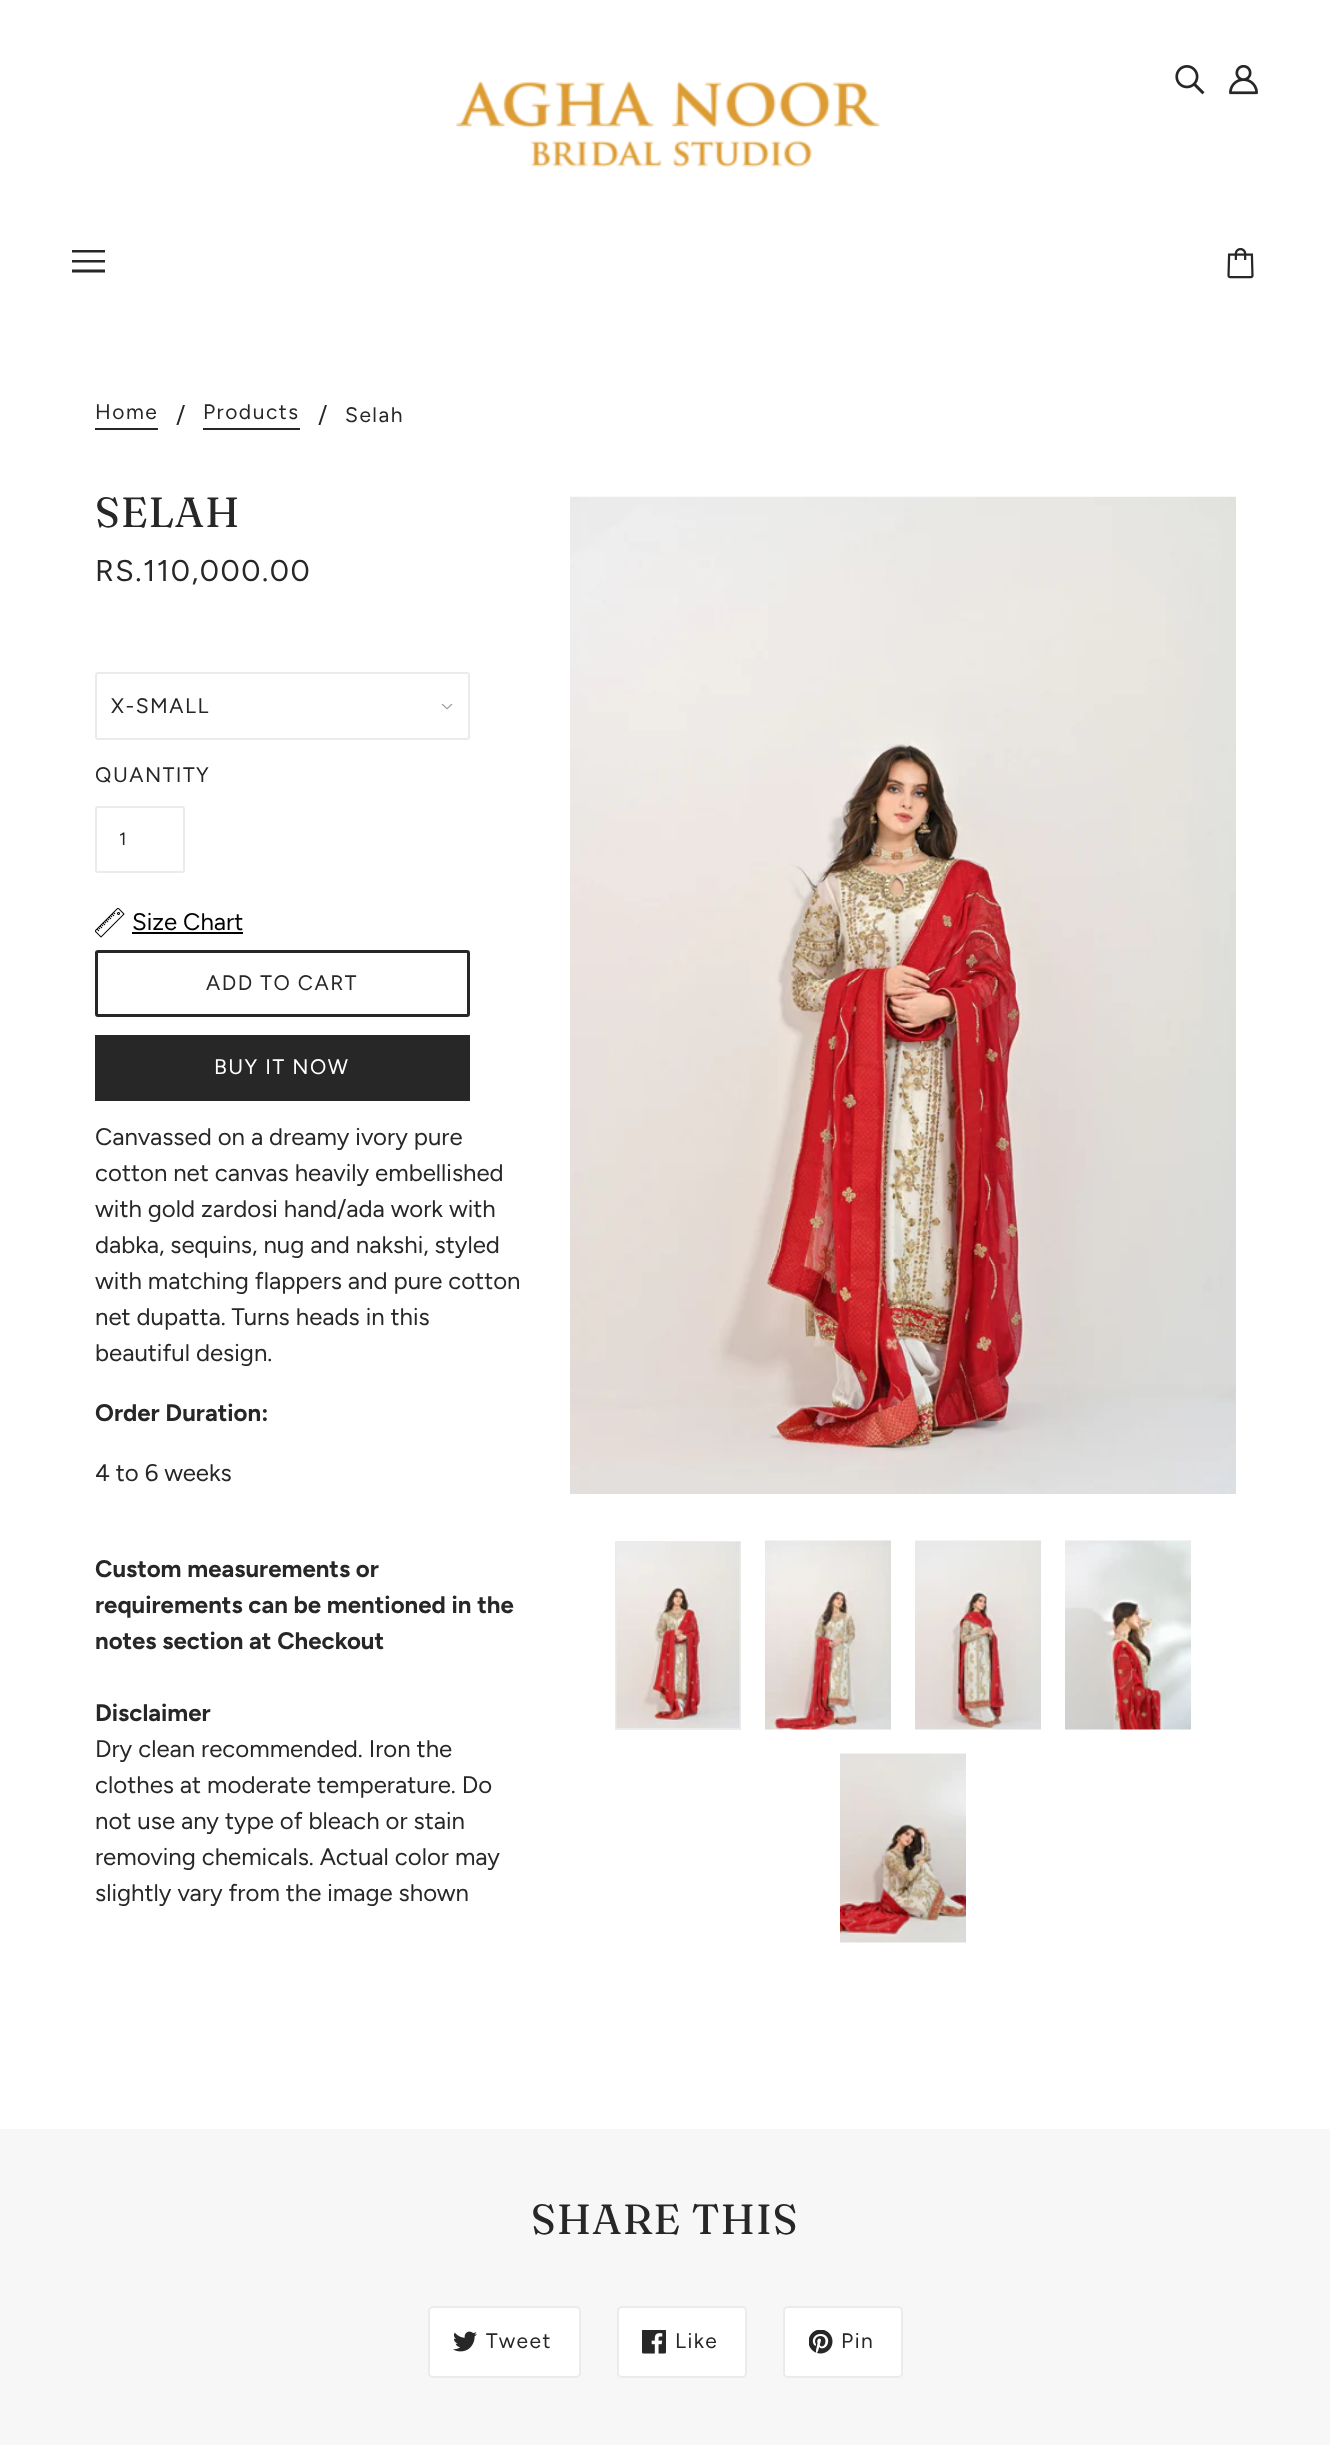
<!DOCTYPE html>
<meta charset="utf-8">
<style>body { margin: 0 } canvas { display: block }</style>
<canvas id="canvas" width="1330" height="2445"></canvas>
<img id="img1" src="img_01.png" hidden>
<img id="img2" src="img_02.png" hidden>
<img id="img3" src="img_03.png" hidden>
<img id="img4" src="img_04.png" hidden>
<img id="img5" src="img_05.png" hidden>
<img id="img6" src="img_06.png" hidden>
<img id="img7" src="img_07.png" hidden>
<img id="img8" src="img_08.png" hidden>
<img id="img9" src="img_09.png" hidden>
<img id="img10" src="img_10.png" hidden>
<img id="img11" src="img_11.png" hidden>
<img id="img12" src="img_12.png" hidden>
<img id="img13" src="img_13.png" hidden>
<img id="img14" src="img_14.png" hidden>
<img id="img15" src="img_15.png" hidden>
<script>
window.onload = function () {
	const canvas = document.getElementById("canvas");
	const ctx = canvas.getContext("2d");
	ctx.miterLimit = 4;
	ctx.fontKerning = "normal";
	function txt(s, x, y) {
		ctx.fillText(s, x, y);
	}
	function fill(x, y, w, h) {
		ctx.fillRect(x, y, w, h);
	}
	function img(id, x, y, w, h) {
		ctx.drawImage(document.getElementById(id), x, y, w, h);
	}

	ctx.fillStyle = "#FFFFFF";
	fill(0, 0, 1330, 2445);
	img("img1", 455, 81, 426, 86);
	img("img2", 1175, 65, 30, 30);
	img("img3", 1229, 65, 29, 30);
	ctx.fillStyle = "#272727";
	ctx.beginPath();
	ctx.moveTo(72, 252.5);
	ctx.lineTo(72, 250);
	ctx.lineTo(105, 250);
	ctx.lineTo(105, 252.5);
	ctx.closePath();
	ctx.moveTo(72, 262.5);
	ctx.lineTo(72, 260);
	ctx.lineTo(105, 260);
	ctx.lineTo(105, 262.5);
	ctx.closePath();
	ctx.moveTo(72, 272.5);
	ctx.lineTo(72, 269.5);
	ctx.lineTo(105, 269.5);
	ctx.lineTo(105, 272.5);
	ctx.closePath();
	ctx.fill();
	img("img4", 1227, 248, 27, 31);
	fill(95, 428, 63, 2);
	fill(203, 428, 97, 2);
	img("img5", 570, 496, 666, 998);
	ctx.strokeStyle = "#EBEBEB";
	ctx.lineWidth = 2;
	ctx.strokeRect(616, 1542, 124, 187);
	img("img6", 616, 1542, 124, 186);
	img("img7", 765, 1540, 126, 190);
	img("img8", 915, 1540, 126, 190);
	img("img9", 1065, 1540, 126, 190);
	img("img10", 840, 1753, 126, 190);
	img("img11", 441, 704, 12, 6);
	ctx.beginPath();
	ctx.roundRect(96, 673, 373, 66, 2);
	ctx.stroke();
	ctx.beginPath();
	ctx.roundRect(96, 807, 88, 65, 2);
	ctx.stroke();
	img("img12", 95, 908, 30, 30);
	ctx.fillStyle = "#000000";
	fill(132, 932, 111, 2);
	ctx.beginPath();
	ctx.roundRect(96.5, 951.5, 372, 64, 1.5);
	ctx.strokeStyle = "#272727";
	ctx.lineWidth = 3;
	ctx.stroke();
	ctx.fillStyle = "#272727";
	fill(95, 1035, 375, 66);
	ctx.fillStyle = "#F7F7F7";
	fill(0, 2129, 1330, 316);
	ctx.fillStyle = "#FFFFFF";
	ctx.beginPath();
	ctx.roundRect(429, 2307, 151, 70, 4);
	ctx.fill();
	ctx.strokeStyle = "#EBEBEB";
	ctx.lineWidth = 2;
	ctx.stroke();
	img("img13", 453, 2331, 24, 21);
	ctx.beginPath();
	ctx.roundRect(618, 2307, 128, 70, 4);
	ctx.fill();
	ctx.stroke();
	img("img14", 642, 2330, 24, 24);
	ctx.beginPath();
	ctx.roundRect(784, 2307, 118, 70, 4);
	ctx.fill();
	ctx.stroke();
	img("img15", 809, 2330, 24, 24);
	ctx.letterSpacing = "1.5px";
	ctx.font = "21px Figtree";
	ctx.fillStyle = "#272727";
	txt("Home", 95, 419);
	ctx.letterSpacing = "0px";
	ctx.font = "24px Figtree";
	txt("/", 176, 423);
	ctx.letterSpacing = "1.5px";
	ctx.font = "21px Figtree";
	txt("Products", 203, 419);
	ctx.letterSpacing = "0px";
	ctx.font = "24px Figtree";
	txt("/", 318, 423);
	ctx.letterSpacing = "1.5px";
	ctx.font = "21px Figtree";
	txt("Selah", 345, 422);
	ctx.letterSpacing = "1px";
	ctx.font = "42px Fraunces";
	txt("SELAH", 95, 527);
	ctx.letterSpacing = "1.5px";
	ctx.font = "30px Figtree";
	txt("RS.110,000.00", 95, 581);
	ctx.font = "21px Figtree";
	txt("X-SMALL", 111, 713);
	txt("QUANTITY", 95, 782);
	ctx.letterSpacing = "1px";
	ctx.font = "18px Figtree";
	txt("1", 119, 845);
	ctx.letterSpacing = "0px";
	ctx.font = "24px Figtree";
	ctx.fillStyle = "#000000";
	txt("Size Chart", 132, 930);
	ctx.letterSpacing = "1.5px";
	ctx.font = "21px Figtree";
	ctx.fillStyle = "#272727";
	txt("ADD TO CART", 206, 990);
	ctx.fillStyle = "#FFFFFF";
	txt("BUY IT NOW", 214, 1074);
	ctx.letterSpacing = "0px";
	ctx.font = "24px Figtree";
	ctx.fillStyle = "#272727";
	txt("Canvassed on a dreamy ivory pure", 95, 1145);
	txt("cotton net canvas heavily embellished", 95, 1181);
	txt("with gold zardosi hand/ada work with", 95, 1217);
	txt("dabka, sequins, nug and nakshi, styled", 95, 1253);
	txt("with matching flappers and pure cotton", 95, 1289);
	txt("net dupatta. Turns heads in this", 95, 1325);
	txt("beautiful design.", 95, 1361);
	ctx.font = "bold 24px Figtree";
	txt("Order Duration:", 95, 1421);
	ctx.font = "24px Figtree";
	txt("4 to 6 weeks", 95, 1481);
	ctx.font = "bold 24px Figtree";
	txt("Custom measurements or", 95, 1577);
	txt("requirements can be mentioned in the", 95, 1613);
	txt("notes section at Checkout", 95, 1649);
	txt("Disclaimer", 95, 1721);
	ctx.font = "24px Figtree";
	txt("Dry clean recommended. Iron the", 95, 1757);
	txt("clothes at moderate temperature. Do", 95, 1793);
	txt("not use any type of bleach or stain", 95, 1829);
	txt("removing chemicals. Actual color may", 95, 1865);
	txt("slightly vary from the image shown", 95, 1901);
	ctx.letterSpacing = "1px";
	ctx.font = "42px Fraunces";
	txt("SHARE THIS", 531, 2234);
	ctx.letterSpacing = "1.5px";
	ctx.font = "21px Figtree";
	txt("Tweet", 486, 2348);
	txt("Like", 675, 2348);
	txt("Pin", 841, 2348);
};
</script>
